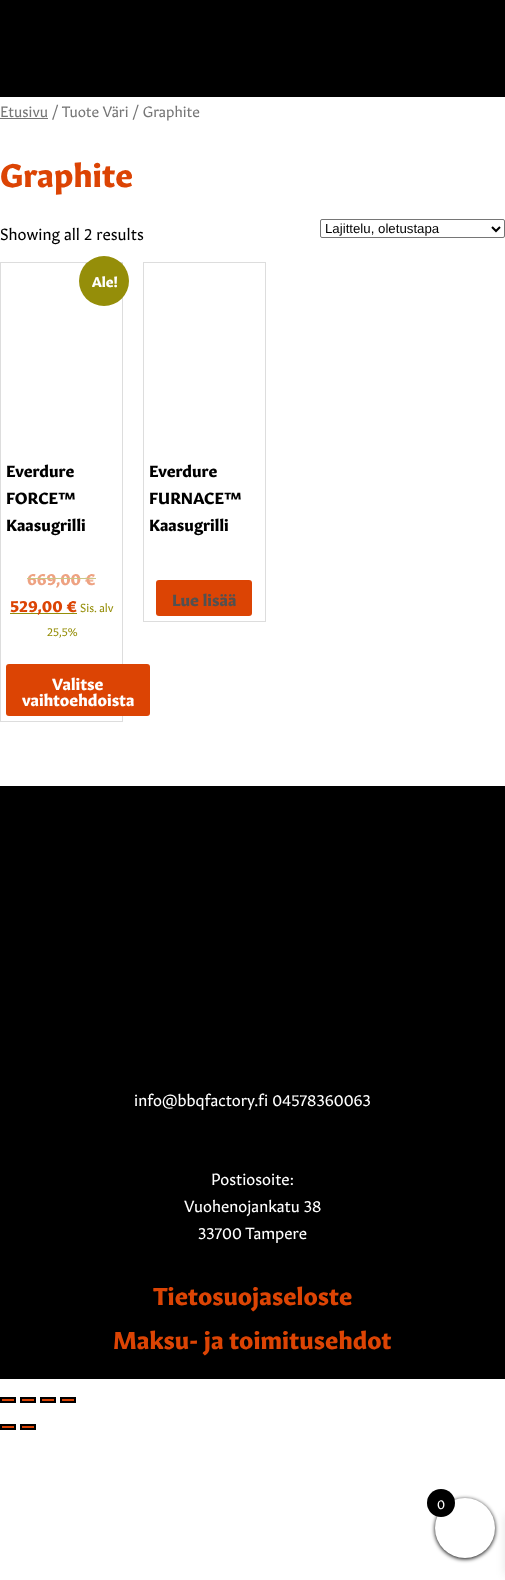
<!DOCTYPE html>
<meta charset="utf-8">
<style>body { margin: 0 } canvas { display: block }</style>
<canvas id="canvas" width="505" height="1580"></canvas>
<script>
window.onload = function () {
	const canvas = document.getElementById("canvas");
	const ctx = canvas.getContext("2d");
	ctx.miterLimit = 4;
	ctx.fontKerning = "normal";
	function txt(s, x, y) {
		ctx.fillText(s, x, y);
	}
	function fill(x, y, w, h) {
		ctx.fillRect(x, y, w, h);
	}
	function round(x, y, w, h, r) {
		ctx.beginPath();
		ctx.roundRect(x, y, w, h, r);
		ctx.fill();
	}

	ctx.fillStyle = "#FFFFFF";
	fill(0, 0, 505, 1580);
	ctx.fillStyle = "#000000";
	fill(0, 0, 505, 97);
	ctx.fillStyle = "#767676";
	fill(0, 118, 48, 1);
	ctx.beginPath();
	ctx.roundRect(320.5, 219.5, 184, 18, 1.5);
	ctx.strokeStyle = "#767676";
	ctx.stroke();
	ctx.beginPath();
	ctx.moveTo(492, 227);
	ctx.lineTo(496, 231);
	ctx.lineTo(500, 227);
	ctx.strokeStyle = "#000000";
	ctx.lineWidth = 2;
	ctx.stroke();
	ctx.strokeStyle = "#DDDDDD";
	ctx.lineWidth = 1;
	ctx.strokeRect(0.5, 262.5, 122, 459);
	ctx.fillStyle = "#958E09";
	ctx.beginPath();
	ctx.arc(104, 281, 25, 0, Math.PI * 2);
	ctx.fill();
	fill(10, 613, 67, 1);
	ctx.fillStyle = "#DC4404";
	round(6, 664, 144, 52, 3);
	ctx.strokeRect(143.5, 262.5, 122, 359);
	round(156, 580, 96, 36, 3);
	ctx.fillStyle = "#000000";
	fill(0, 786, 505, 593);
	ctx.fillStyle = "#DC4404";
	ctx.beginPath();
	ctx.rect(1, 1398, 14, 4);
	ctx.fill();
	ctx.strokeStyle = "#000000";
	ctx.lineWidth = 2;
	ctx.stroke();
	ctx.beginPath();
	ctx.rect(21, 1398, 14, 4);
	ctx.fill();
	ctx.stroke();
	ctx.beginPath();
	ctx.rect(41, 1398, 14, 4);
	ctx.fill();
	ctx.stroke();
	ctx.beginPath();
	ctx.rect(61, 1398, 14, 4);
	ctx.fill();
	ctx.stroke();
	ctx.beginPath();
	ctx.rect(1, 1425, 14, 4);
	ctx.fill();
	ctx.stroke();
	ctx.beginPath();
	ctx.rect(21, 1425, 14, 4);
	ctx.fill();
	ctx.stroke();
	ctx.fillStyle = "#000000";
	ctx.filter = "blur(2px)";
	ctx.beginPath();
	ctx.roundRect(435, 1499, 60, 60, 30);
	ctx.fill();
	ctx.filter = "none";
	ctx.fillStyle = "rgba(0, 0, 0, 0.1)";
	ctx.filter = "blur(5px)";
	ctx.beginPath();
	ctx.rect(505, 1515, 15, 60);
	ctx.fill();
	ctx.filter = "none";
	ctx.fillStyle = "#FFFFFF";
	ctx.beginPath();
	ctx.arc(465, 1528, 30, 0, Math.PI * 2);
	ctx.fill();
	ctx.fillStyle = "#000000";
	ctx.beginPath();
	ctx.arc(441, 1503, 14, 0, Math.PI * 2);
	ctx.fill();
	ctx.font = "14.75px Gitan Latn";
	ctx.fillStyle = "#767676";
	txt("Etusivu / Tuote Väri / Graphite", 0, 117);
	ctx.font = "bold 32px Gitan Latn";
	ctx.fillStyle = "#DC4404";
	txt("Graphite", 0, 187);
	ctx.font = "16px Gitan Latn";
	ctx.fillStyle = "#000000";
	txt("Showing all 2 results", 0, 240);
	ctx.font = "13.25px Liberation Sans";
	txt("Lajittelu, oletustapa", 325, 233);
	ctx.font = "bold 14px Gitan Latn";
	ctx.fillStyle = "#FFFFFF";
	txt("Ale!", 92, 287);
	ctx.font = "bold 16px Gitan Latn";
	ctx.fillStyle = "#000000";
	txt("Everdure", 6, 477);
	txt("FORCE™", 6, 504);
	txt("Kaasugrilli", 6, 531);
	ctx.fillStyle = "#EEA282";
	txt("669,00 €", 27, 585);
	ctx.fillStyle = "#CAC784";
	fill(27, 578, 69, 1);
	ctx.fillStyle = "#DC4404";
	txt("529,00 €", 10, 612);
	ctx.font = "11.5px Gitan Latn";
	ctx.fillStyle = "#958E09";
	txt("Sis. alv", 80, 612);
	txt("25,5%", 47, 636);
	ctx.font = "bold 16px Gitan Latn";
	ctx.fillStyle = "#FFFFFF";
	txt("Valitse", 52, 690);
	txt("vaihtoehdoista", 22, 706);
	ctx.fillStyle = "#000000";
	txt("Everdure", 149, 477);
	txt("FURNACE™", 149, 504);
	txt("Kaasugrilli", 149, 531);
	ctx.fillStyle = "#515151";
	txt("Lue lisää", 172, 606);
	ctx.font = "16px Gitan Latn";
	ctx.fillStyle = "#FFFFFF";
	txt("info@bbqfactory.fi 04578360063", 134, 1106);
	txt("Postiosoite:", 211, 1185);
	txt("Vuohenojankatu 38", 184, 1212);
	txt("33700 Tampere", 198, 1239);
	ctx.font = "bold 24px Gitan Latn";
	ctx.fillStyle = "#DC4404";
	txt("Tietosuojaseloste", 153, 1305);
	txt("Maksu- ja toimitusehdot", 113, 1349);
	ctx.font = "13px Gitan Latn";
	ctx.fillStyle = "#FFFFFF";
	txt("0", 437, 1509);
};
</script>
